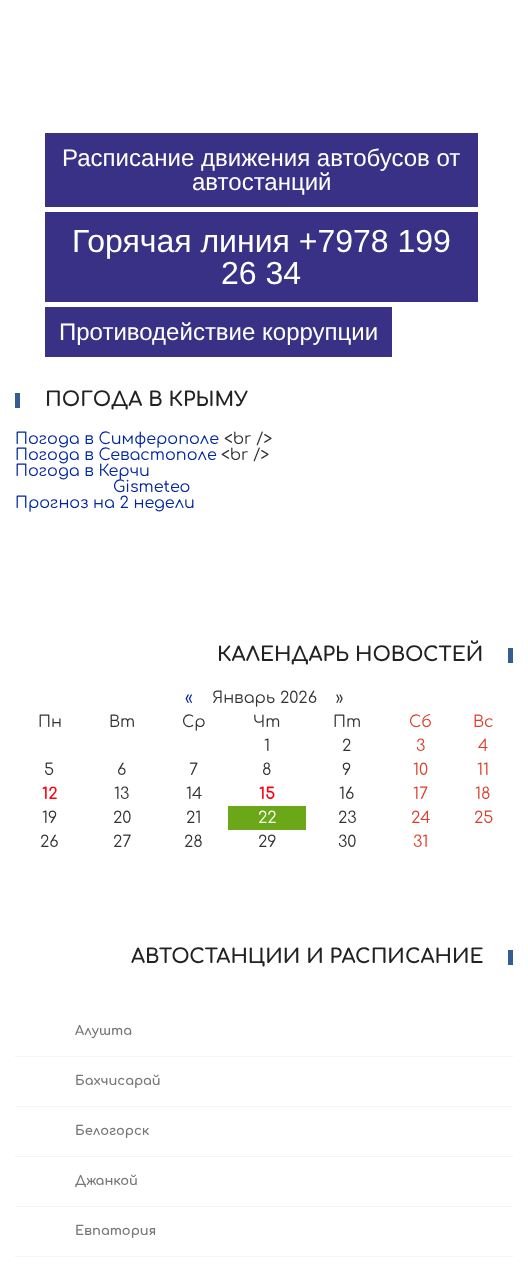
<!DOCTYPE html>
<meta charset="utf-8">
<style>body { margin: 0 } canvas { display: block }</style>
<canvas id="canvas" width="528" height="1267"></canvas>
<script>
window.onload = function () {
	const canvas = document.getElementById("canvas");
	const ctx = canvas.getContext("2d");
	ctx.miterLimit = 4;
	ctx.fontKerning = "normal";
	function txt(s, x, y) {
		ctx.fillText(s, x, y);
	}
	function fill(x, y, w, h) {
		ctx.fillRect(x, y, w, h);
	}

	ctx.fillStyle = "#FFFFFF";
	fill(0, 0, 528, 1267);
	ctx.fillStyle = "#393185";
	fill(45, 133, 433, 74);
	fill(45, 212, 433, 90);
	fill(45, 307, 347, 50);
	ctx.fillStyle = "#325C92";
	fill(15, 393, 5, 15);
	fill(508, 648, 5, 15);
	ctx.fillStyle = "#6AA819";
	fill(228, 806, 78, 24);
	ctx.fillStyle = "#325C92";
	fill(508, 950, 5, 15);
	ctx.fillStyle = "#F4F4F4";
	fill(15, 1056, 498, 1);
	fill(15, 1106, 498, 1);
	fill(15, 1156, 498, 1);
	fill(15, 1206, 498, 1);
	fill(15, 1256, 498, 1);
	ctx.font = "24px Liberation Sans";
	ctx.fillStyle = "#FFFFFF";
	txt("Расписание движения автобусов от", 62, 166);
	txt("автостанций", 192, 190);
	ctx.font = "32px Liberation Sans";
	txt("Горячая линия +7978 199", 72, 252);
	txt("26 34", 221, 284);
	ctx.font = "24px Liberation Sans";
	txt("Противодействие коррупции", 59, 340);
	ctx.font = "bold 20px Comfortaa";
	ctx.fillStyle = "#222222";
	txt("ПОГОДА В КРЫМУ", 45, 406);
	ctx.font = "16px Comfortaa";
	ctx.fillStyle = "#0026A0";
	txt("Погода в Симферополе", 15, 444);
	ctx.fillStyle = "#333333";
	txt("<br />", 224, 444);
	ctx.fillStyle = "#0026A0";
	txt("Погода в Севастополе", 15, 460);
	ctx.fillStyle = "#333333";
	txt("<br />", 221, 460);
	ctx.fillStyle = "#0026A0";
	txt("Погода в Керчи", 15, 476);
	txt("Gismeteo", 113, 492);
	txt("Прогноз на 2 недели", 15, 508);
	ctx.font = "bold 20px Comfortaa";
	ctx.fillStyle = "#222222";
	txt("КАЛЕНДАРЬ НОВОСТЕЙ", 217, 661);
	ctx.font = "16px Comfortaa";
	ctx.fillStyle = "#0026A0";
	txt("«", 185, 703);
	ctx.fillStyle = "#333333";
	txt("Январь 2026    »", 212, 703);
	txt("Пн", 38, 727);
	txt("Вт", 109, 727);
	txt("Ср", 182, 727);
	txt("Чт", 253, 727);
	txt("Пт", 333, 727);
	ctx.fillStyle = "#DD3E2A";
	txt("Сб", 409, 727);
	txt("Вс", 473, 727);
	ctx.fillStyle = "#333333";
	txt("1", 264, 751);
	txt("2", 342, 751);
	ctx.fillStyle = "#DD3E2A";
	txt("3", 416, 751);
	txt("4", 478, 751);
	ctx.fillStyle = "#333333";
	txt("5", 44, 775);
	txt("6", 117, 775);
	txt("7", 189, 775);
	txt("8", 262, 775);
	txt("9", 342, 775);
	ctx.fillStyle = "#DD3E2A";
	txt("10", 413, 775);
	txt("11", 477, 775);
	ctx.font = "bold 16px Comfortaa";
	ctx.fillStyle = "#FF0013";
	txt("12", 42, 799);
	ctx.font = "16px Comfortaa";
	ctx.fillStyle = "#333333";
	txt("13", 114, 799);
	txt("14", 186, 799);
	ctx.font = "bold 16px Comfortaa";
	ctx.fillStyle = "#FF0013";
	txt("15", 259, 799);
	ctx.font = "16px Comfortaa";
	ctx.fillStyle = "#333333";
	txt("16", 339, 799);
	ctx.fillStyle = "#DD3E2A";
	txt("17", 413, 799);
	txt("18", 475, 799);
	ctx.fillStyle = "#333333";
	txt("19", 42, 823);
	txt("20", 113, 823);
	txt("21", 186, 823);
	ctx.fillStyle = "#FFFFFF";
	txt("22", 258, 823);
	ctx.fillStyle = "#333333";
	txt("23", 338, 823);
	ctx.fillStyle = "#DD3E2A";
	txt("24", 411, 823);
	txt("25", 474, 823);
	ctx.fillStyle = "#333333";
	txt("26", 40, 847);
	txt("27", 113, 847);
	txt("28", 184, 847);
	txt("29", 258, 847);
	txt("30", 338, 847);
	ctx.fillStyle = "#DD3E2A";
	txt("31", 413, 847);
	ctx.font = "bold 20px Comfortaa";
	ctx.fillStyle = "#222222";
	txt("АВТОСТАНЦИИ И РАСПИСАНИЕ", 131, 963);
	ctx.font = "bold 13px Comfortaa";
	ctx.fillStyle = "#777777";
	txt("Алушта", 75, 1035);
	txt("Бахчисарай", 75, 1085);
	txt("Белогорск", 75, 1135);
	txt("Джанкой", 75, 1185);
	txt("Евпатория", 75, 1235);
};
</script>
